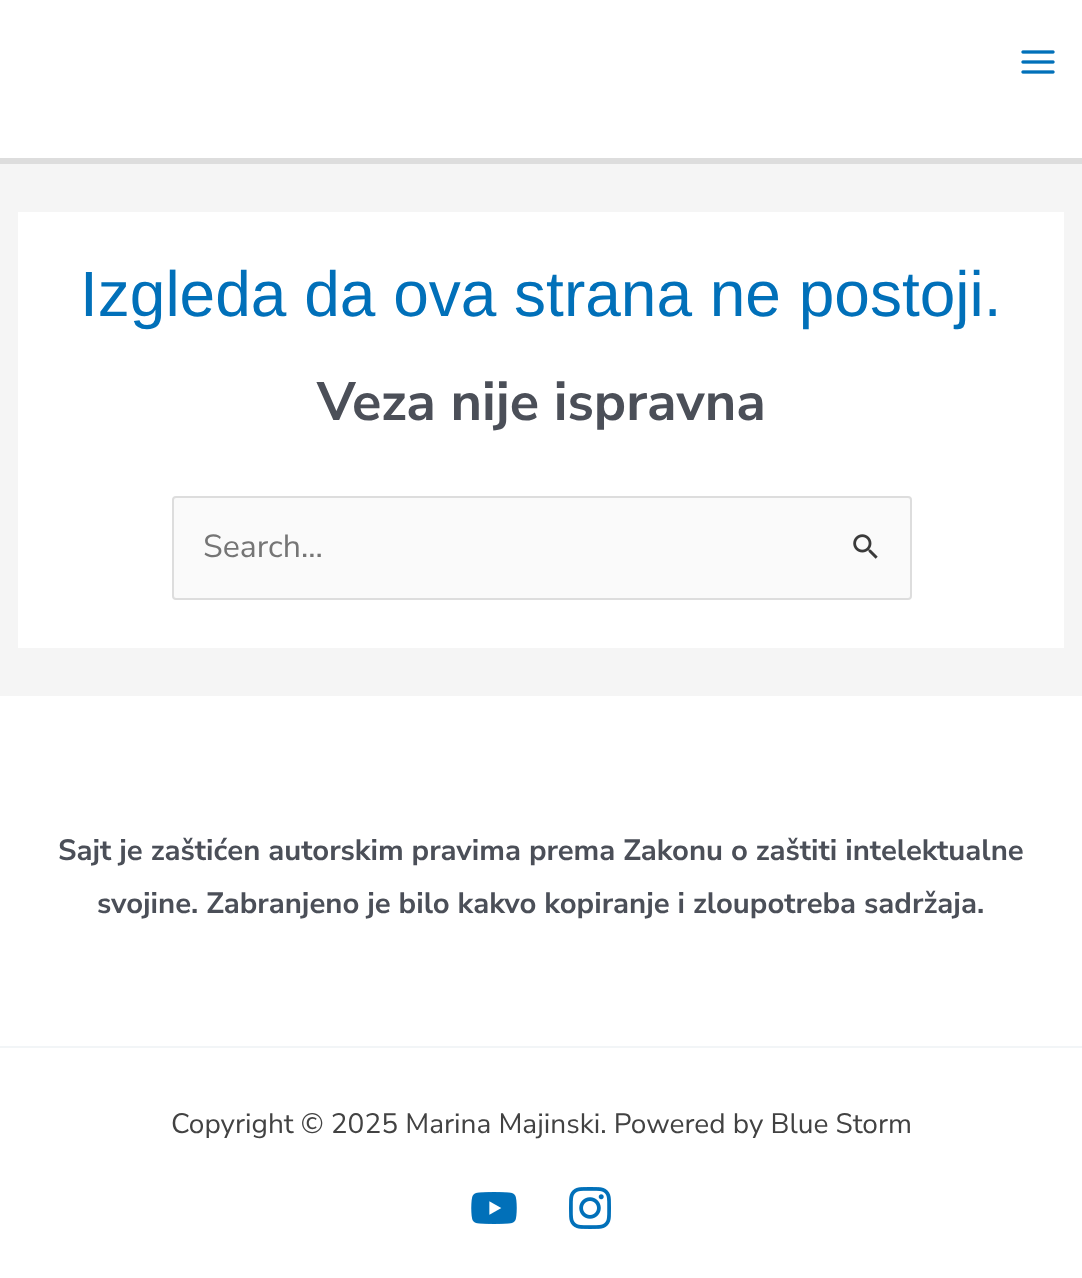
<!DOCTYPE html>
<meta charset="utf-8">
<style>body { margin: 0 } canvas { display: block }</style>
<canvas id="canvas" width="1082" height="1278"></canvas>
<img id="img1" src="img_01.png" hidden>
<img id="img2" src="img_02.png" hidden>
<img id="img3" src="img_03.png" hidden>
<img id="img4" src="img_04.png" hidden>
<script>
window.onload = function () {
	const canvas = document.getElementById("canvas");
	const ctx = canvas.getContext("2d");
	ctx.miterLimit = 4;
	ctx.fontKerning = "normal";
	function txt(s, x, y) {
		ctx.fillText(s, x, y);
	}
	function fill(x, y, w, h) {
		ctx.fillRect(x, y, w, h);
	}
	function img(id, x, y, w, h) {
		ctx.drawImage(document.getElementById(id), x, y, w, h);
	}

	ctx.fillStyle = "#F5F5F5";
	fill(0, 0, 1082, 1278);
	ctx.fillStyle = "#FFFFFF";
	fill(0, 0, 1082, 158);
	ctx.fillStyle = "#DDDDDD";
	fill(0, 158, 1082, 6);
	img("img1", 1021, 50, 34, 24);
	ctx.fillStyle = "#FFFFFF";
	fill(18, 212, 1046, 436);
	ctx.fillStyle = "#FAFAFA";
	ctx.beginPath();
	ctx.roundRect(173, 497, 738, 102, 3);
	ctx.fill();
	ctx.strokeStyle = "#DDDDDD";
	ctx.lineWidth = 2;
	ctx.stroke();
	img("img2", 853, 534, 25, 25);
	ctx.fillStyle = "#FFFFFF";
	fill(0, 696, 1082, 582);
	ctx.fillStyle = "#F2F5F7";
	fill(0, 1046, 1082, 2);
	img("img3", 471, 1192, 46, 32);
	img("img4", 569, 1187, 42, 42);
	ctx.font = "64px Liberation Sans";
	ctx.fillStyle = "#0170B9";
	txt("Izgleda da ova strana ne postoji.", 80, 316);
	ctx.font = "bold 54px Nunito Sans";
	ctx.fillStyle = "#4B4F58";
	txt("Veza nije ispravna", 317, 420);
	ctx.font = "32px Nunito Sans";
	ctx.fillStyle = "#757575";
	txt("Search...", 203, 557);
	ctx.font = "bold 29.3px Nunito Sans";
	ctx.fillStyle = "#4B4F58";
	txt("Sajt je zaštićen autorskim pravima prema Zakonu o zaštiti intelektualne", 58, 860);
	txt("svojine. Zabranjeno je bilo kakvo kopiranje i zloupotreba sadržaja.", 97, 913);
	ctx.font = "28px Nunito Sans";
	ctx.fillStyle = "#424242";
	txt("Copyright © 2025 Marina Majinski. Powered by Blue Storm", 171, 1133);
};
</script>
